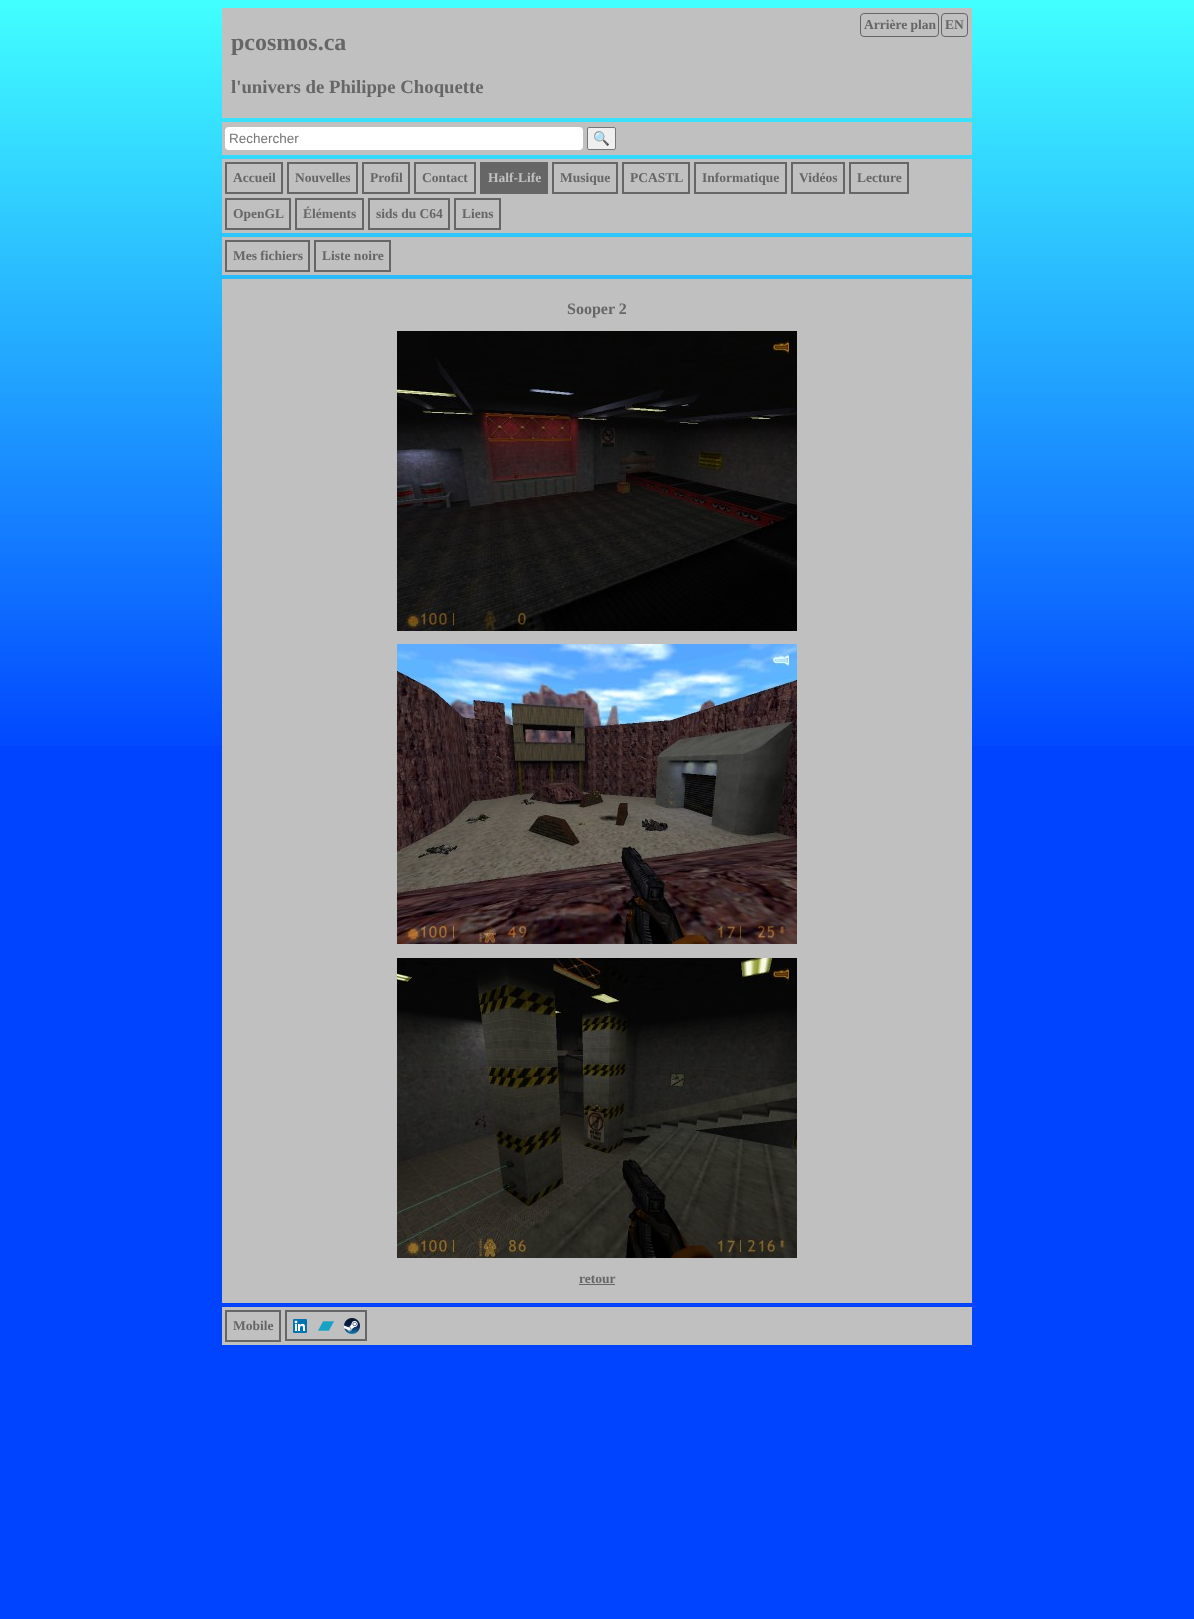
<!DOCTYPE html>
<meta charset="utf-8">
<style>body { margin: 0 } canvas { display: block }</style>
<canvas id="canvas" width="1194" height="1619"></canvas>
<img id="img1" src="img_01.png" hidden>
<img id="img2" src="img_02.png" hidden>
<img id="img3" src="img_03.png" hidden>
<img id="img4" src="img_04.png" hidden>
<img id="img5" src="img_05.png" hidden>
<img id="img6" src="img_06.png" hidden>
<img id="img7" src="img_07.png" hidden>
<script>
window.onload = function () {
	const canvas = document.getElementById("canvas");
	const ctx = canvas.getContext("2d");
	ctx.miterLimit = 4;
	ctx.fontKerning = "normal";
	function txt(s, x, y) {
		ctx.fillText(s, x, y);
	}
	function fill(x, y, w, h) {
		ctx.fillRect(x, y, w, h);
	}
	function round(x, y, w, h, r) {
		ctx.beginPath();
		ctx.roundRect(x, y, w, h, r);
		ctx.fill();
	}
	function img(id, x, y, w, h) {
		ctx.drawImage(document.getElementById(id), x, y, w, h);
	}

	ctx.fillStyle = "#0044FF";
	fill(0, 0, 1194, 1619);
	img("img1", 0, 0, 1194, 746);
	ctx.fillStyle = "#C0C0C0";
	fill(222, 8, 750, 110);
	ctx.beginPath();
	ctx.roundRect(860.5, 13.5, 78, 23, 3.5);
	ctx.strokeStyle = "#666666";
	ctx.stroke();
	ctx.beginPath();
	ctx.roundRect(941.5, 13.5, 26, 23, 3.5);
	ctx.stroke();
	fill(222, 122, 750, 33);
	ctx.fillStyle = "#FFFFFF";
	round(225, 127, 358, 23, 4);
	ctx.fillStyle = "#EFEFEF";
	ctx.beginPath();
	ctx.roundRect(587.5, 127.5, 28, 22, 1.5);
	ctx.fill();
	ctx.strokeStyle = "#767676";
	ctx.stroke();
	ctx.fillStyle = "#C0C0C0";
	fill(222, 159, 750, 74);
	ctx.strokeStyle = "#666666";
	ctx.lineWidth = 2;
	ctx.strokeRect(226, 163, 56, 30);
	ctx.strokeRect(288, 163, 69, 30);
	ctx.strokeRect(363, 163, 46, 30);
	ctx.strokeRect(415, 163, 60, 30);
	ctx.fillStyle = "#666666";
	fill(480, 162, 68, 32);
	ctx.strokeRect(553, 163, 64, 30);
	ctx.strokeRect(623, 163, 66, 30);
	ctx.strokeRect(695, 163, 91, 30);
	ctx.strokeRect(792, 163, 52, 30);
	ctx.strokeRect(850, 163, 58, 30);
	ctx.strokeRect(226, 199, 64, 30);
	ctx.strokeRect(296, 199, 67, 30);
	ctx.strokeRect(369, 199, 80, 30);
	ctx.strokeRect(455, 199, 45, 30);
	ctx.fillStyle = "#C0C0C0";
	fill(222, 237, 750, 38);
	ctx.strokeRect(226, 241, 83, 30);
	ctx.strokeRect(315, 241, 75, 30);
	fill(222, 279, 750, 1024);
	img("img2", 397, 331, 400, 300);
	img("img3", 397, 644, 400, 300);
	img("img4", 397, 958, 400, 300);
	ctx.fillStyle = "#666666";
	fill(579, 1284, 36, 1);
	ctx.fillStyle = "#C0C0C0";
	fill(222, 1307, 750, 38);
	ctx.strokeRect(226, 1311, 54, 30);
	ctx.strokeRect(286, 1311, 80, 29);
	img("img5", 293, 1319, 14, 14);
	img("img6", 318, 1321, 16, 10);
	img("img7", 344, 1318, 16, 16);
	ctx.font = "bold 13.5px Liberation Serif";
	ctx.fillStyle = "#666666";
	txt("Arrière plan", 864, 29);
	txt("EN", 945, 29);
	ctx.font = "bold 24px Liberation Serif";
	txt("pcosmos.ca", 231, 50);
	ctx.font = "bold 18.75px Liberation Serif";
	txt("l'univers de Philippe Choquette", 231, 93);
	ctx.font = "13.5px Liberation Sans";
	ctx.fillStyle = "#757575";
	txt("Rechercher", 229, 143);
	ctx.font = "13.5px Noto Color Emoji";
	ctx.fillStyle = "#000000";
	txt("🔍", 593, 143);
	ctx.font = "bold 13.5px Liberation Serif";
	ctx.fillStyle = "#666666";
	txt("Accueil", 233, 182);
	txt("Nouvelles", 295, 182);
	txt("Profil", 370, 182);
	txt("Contact", 422, 182);
	ctx.fillStyle = "#C0C0C0";
	txt("Half-Life", 488, 182);
	ctx.fillStyle = "#666666";
	txt("Musique", 560, 182);
	txt("PCASTL", 630, 182);
	txt("Informatique", 702, 182);
	txt("Vidéos", 799, 182);
	txt("Lecture", 857, 182);
	txt("OpenGL", 233, 218);
	txt("Éléments", 303, 218);
	txt("sids du C64", 376, 218);
	txt("Liens", 462, 218);
	txt("Mes fichiers", 233, 260);
	txt("Liste noire", 322, 260);
	ctx.font = "bold 16px Liberation Serif";
	txt("Sooper 2", 567, 314);
	ctx.font = "bold 13.5px Liberation Serif";
	txt("retour", 579, 1283);
	txt("Mobile", 233, 1330);
};
</script>
